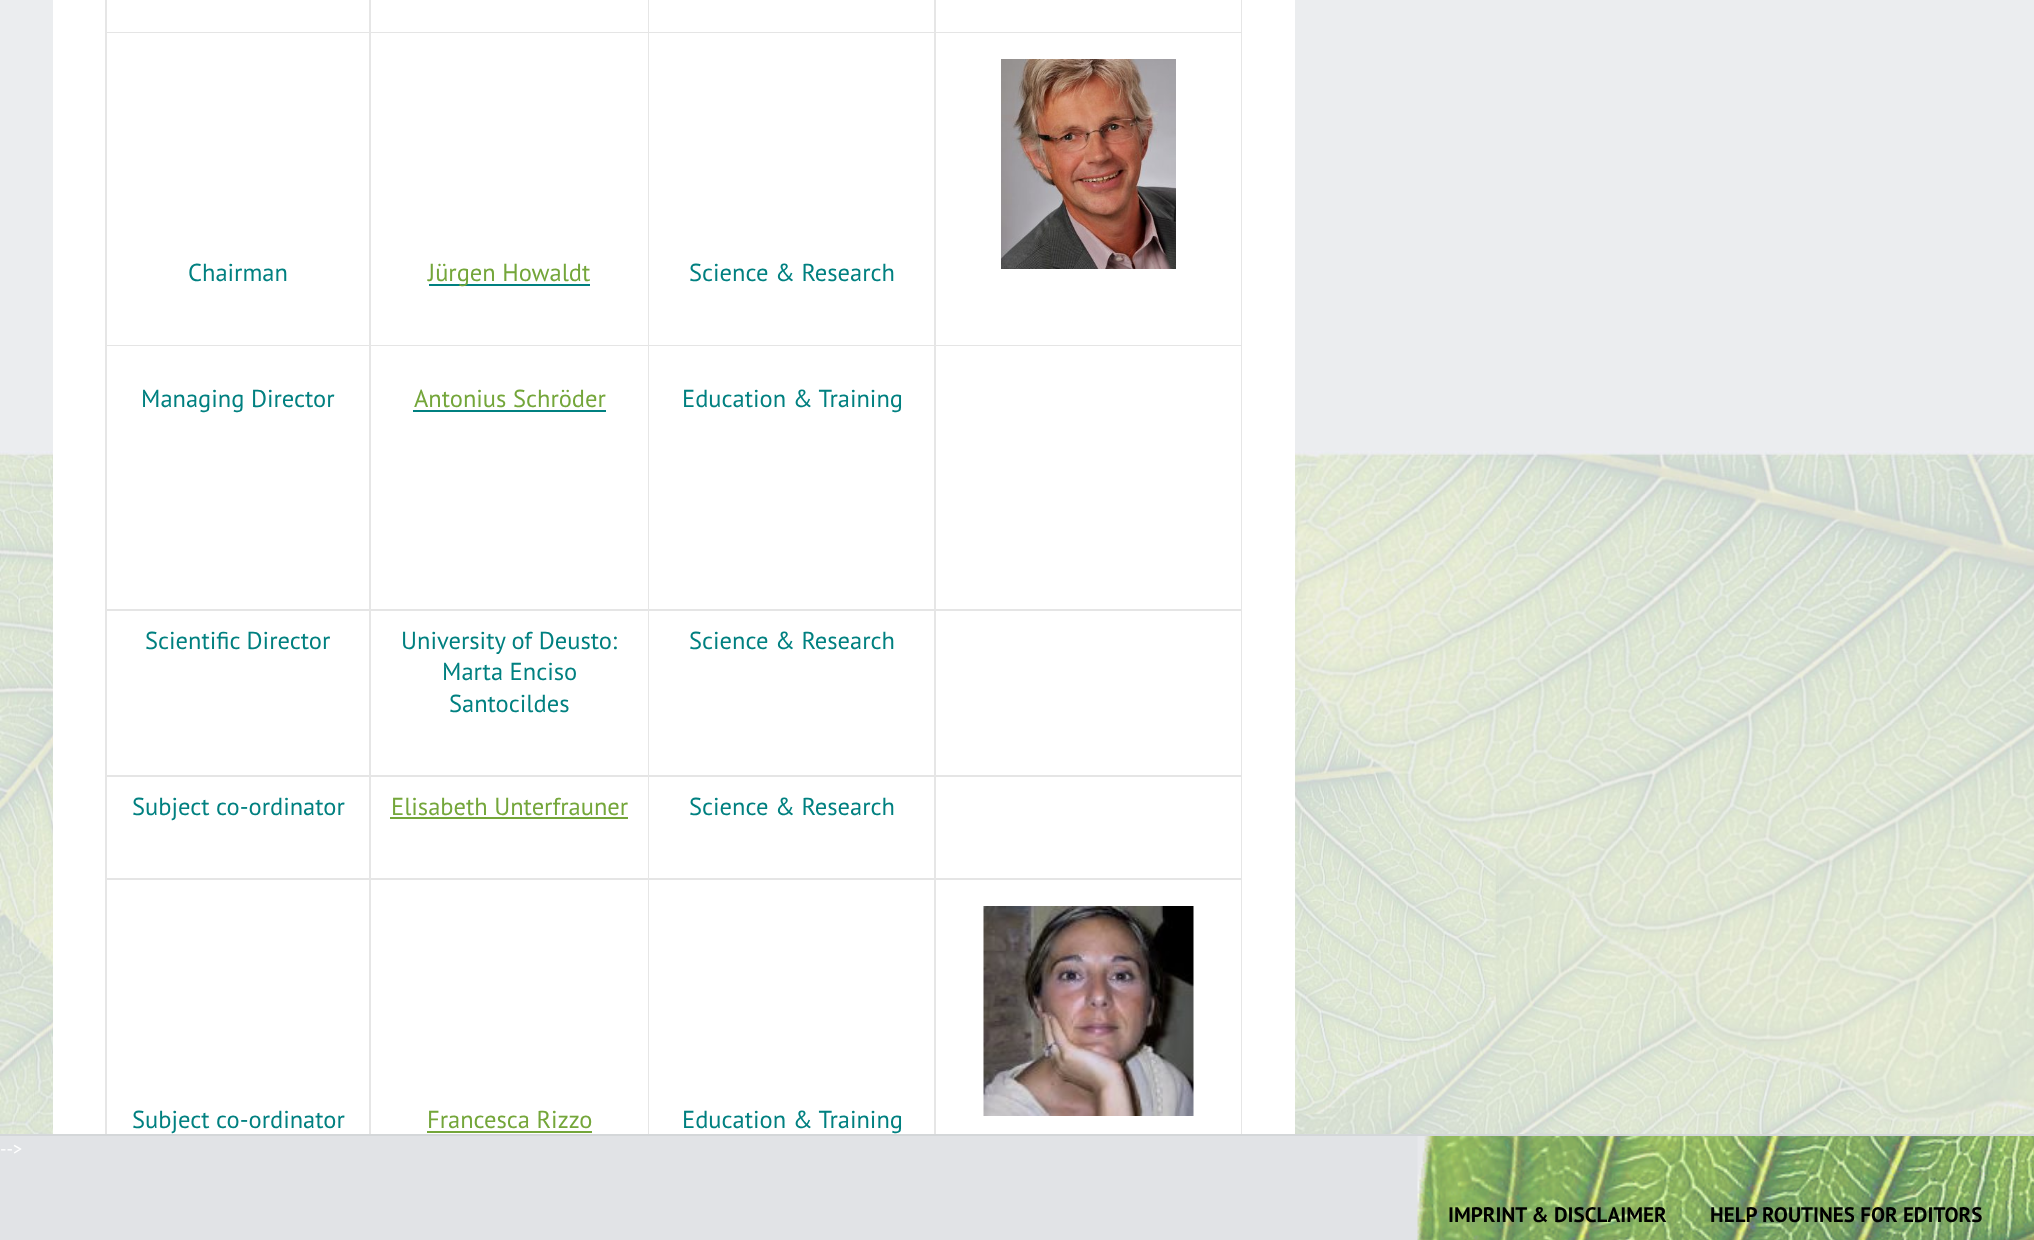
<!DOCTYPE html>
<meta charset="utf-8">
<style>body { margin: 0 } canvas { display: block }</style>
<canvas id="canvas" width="2034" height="1240"></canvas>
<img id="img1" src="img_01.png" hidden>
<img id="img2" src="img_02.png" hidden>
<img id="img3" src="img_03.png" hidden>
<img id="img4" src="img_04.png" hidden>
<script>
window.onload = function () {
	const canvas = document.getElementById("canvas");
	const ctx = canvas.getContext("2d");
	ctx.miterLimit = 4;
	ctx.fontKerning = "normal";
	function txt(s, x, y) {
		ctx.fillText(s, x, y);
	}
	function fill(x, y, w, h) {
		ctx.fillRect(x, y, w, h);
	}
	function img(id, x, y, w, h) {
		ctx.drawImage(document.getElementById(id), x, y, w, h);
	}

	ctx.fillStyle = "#EBEDEF";
	fill(0, 0, 2034, 1240);
	img("img1", 0, 451, 2034, 683);
	ctx.fillStyle = "#FFFFFF";
	fill(53, 0, 1242, 1134);
	ctx.fillStyle = "#E6E6E6";
	ctx.beginPath();
	ctx.moveTo(105, 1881);
	ctx.lineTo(105, -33);
	ctx.lineTo(107, -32);
	ctx.lineTo(107, 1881);
	ctx.closePath();
	ctx.fill();
	ctx.beginPath();
	ctx.moveTo(371, -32);
	ctx.lineTo(371, 33);
	ctx.lineTo(369, 32);
	ctx.lineTo(369, -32);
	ctx.closePath();
	ctx.fill();
	ctx.fillStyle = "rgba(0, 0, 0, 0.1)";
	ctx.beginPath();
	ctx.moveTo(371, 33);
	ctx.lineTo(107, 33);
	ctx.lineTo(107, 32);
	ctx.lineTo(369, 32);
	ctx.closePath();
	ctx.fill();
	ctx.fillStyle = "#E6E6E6";
	ctx.beginPath();
	ctx.moveTo(649, -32);
	ctx.lineTo(649, 33);
	ctx.lineTo(648, 32);
	ctx.lineTo(648, -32);
	ctx.closePath();
	ctx.fill();
	ctx.fillStyle = "rgba(0, 0, 0, 0.1)";
	ctx.beginPath();
	ctx.moveTo(649, 33);
	ctx.lineTo(371, 33);
	ctx.lineTo(371, 32);
	ctx.lineTo(648, 32);
	ctx.closePath();
	ctx.fill();
	ctx.fillStyle = "#E6E6E6";
	ctx.beginPath();
	ctx.moveTo(936, -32);
	ctx.lineTo(936, 33);
	ctx.lineTo(934, 32);
	ctx.lineTo(934, -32);
	ctx.closePath();
	ctx.fill();
	ctx.fillStyle = "rgba(0, 0, 0, 0.1)";
	ctx.beginPath();
	ctx.moveTo(936, 33);
	ctx.lineTo(649, 33);
	ctx.lineTo(649, 32);
	ctx.lineTo(934, 32);
	ctx.closePath();
	ctx.fill();
	ctx.fillStyle = "#E6E6E6";
	ctx.beginPath();
	ctx.moveTo(1242, -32);
	ctx.lineTo(1242, 33);
	ctx.lineTo(1241, 32);
	ctx.lineTo(1241, -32);
	ctx.closePath();
	ctx.fill();
	ctx.fillStyle = "rgba(0, 0, 0, 0.1)";
	ctx.beginPath();
	ctx.moveTo(1242, 33);
	ctx.lineTo(936, 33);
	ctx.lineTo(936, 32);
	ctx.lineTo(1241, 32);
	ctx.closePath();
	ctx.fill();
	ctx.fillStyle = "#E6E6E6";
	ctx.beginPath();
	ctx.moveTo(371, 33);
	ctx.lineTo(371, 346);
	ctx.lineTo(369, 345);
	ctx.lineTo(369, 33);
	ctx.closePath();
	ctx.fill();
	ctx.fillStyle = "rgba(0, 0, 0, 0.1)";
	ctx.beginPath();
	ctx.moveTo(371, 346);
	ctx.lineTo(107, 346);
	ctx.lineTo(107, 345);
	ctx.lineTo(369, 345);
	ctx.closePath();
	ctx.fill();
	ctx.fillStyle = "#E6E6E6";
	ctx.beginPath();
	ctx.moveTo(649, 33);
	ctx.lineTo(649, 346);
	ctx.lineTo(648, 345);
	ctx.lineTo(648, 33);
	ctx.closePath();
	ctx.fill();
	ctx.fillStyle = "rgba(0, 0, 0, 0.1)";
	ctx.beginPath();
	ctx.moveTo(649, 346);
	ctx.lineTo(371, 346);
	ctx.lineTo(371, 345);
	ctx.lineTo(648, 345);
	ctx.closePath();
	ctx.fill();
	ctx.fillStyle = "#008080";
	fill(429, 284, 161, 2);
	ctx.fillStyle = "#E6E6E6";
	ctx.beginPath();
	ctx.moveTo(936, 33);
	ctx.lineTo(936, 346);
	ctx.lineTo(934, 345);
	ctx.lineTo(934, 33);
	ctx.closePath();
	ctx.fill();
	ctx.fillStyle = "rgba(0, 0, 0, 0.1)";
	ctx.beginPath();
	ctx.moveTo(936, 346);
	ctx.lineTo(649, 346);
	ctx.lineTo(649, 345);
	ctx.lineTo(934, 345);
	ctx.closePath();
	ctx.fill();
	ctx.fillStyle = "#E6E6E6";
	ctx.beginPath();
	ctx.moveTo(1242, 33);
	ctx.lineTo(1242, 346);
	ctx.lineTo(1241, 345);
	ctx.lineTo(1241, 33);
	ctx.closePath();
	ctx.fill();
	ctx.fillStyle = "rgba(0, 0, 0, 0.1)";
	ctx.beginPath();
	ctx.moveTo(1242, 346);
	ctx.lineTo(936, 346);
	ctx.lineTo(936, 345);
	ctx.lineTo(1241, 345);
	ctx.closePath();
	ctx.fill();
	img("img2", 1001, 59, 175, 210);
	ctx.fillStyle = "#E6E6E6";
	ctx.beginPath();
	ctx.moveTo(371, 346);
	ctx.lineTo(371, 611);
	ctx.lineTo(369, 609);
	ctx.lineTo(369, 346);
	ctx.closePath();
	ctx.fill();
	ctx.fillStyle = "rgba(0, 0, 0, 0.1)";
	ctx.beginPath();
	ctx.moveTo(371, 611);
	ctx.lineTo(107, 611);
	ctx.lineTo(107, 609);
	ctx.lineTo(369, 609);
	ctx.closePath();
	ctx.fill();
	ctx.fillStyle = "#E6E6E6";
	ctx.beginPath();
	ctx.moveTo(649, 346);
	ctx.lineTo(649, 611);
	ctx.lineTo(648, 609);
	ctx.lineTo(648, 346);
	ctx.closePath();
	ctx.fill();
	ctx.fillStyle = "rgba(0, 0, 0, 0.1)";
	ctx.beginPath();
	ctx.moveTo(649, 611);
	ctx.lineTo(371, 611);
	ctx.lineTo(371, 609);
	ctx.lineTo(648, 609);
	ctx.closePath();
	ctx.fill();
	ctx.fillStyle = "#008080";
	fill(413, 410, 193, 2);
	ctx.fillStyle = "#E6E6E6";
	ctx.beginPath();
	ctx.moveTo(936, 346);
	ctx.lineTo(936, 611);
	ctx.lineTo(934, 609);
	ctx.lineTo(934, 346);
	ctx.closePath();
	ctx.fill();
	ctx.fillStyle = "rgba(0, 0, 0, 0.1)";
	ctx.beginPath();
	ctx.moveTo(936, 611);
	ctx.lineTo(649, 611);
	ctx.lineTo(649, 609);
	ctx.lineTo(934, 609);
	ctx.closePath();
	ctx.fill();
	ctx.fillStyle = "#E6E6E6";
	ctx.beginPath();
	ctx.moveTo(1242, 346);
	ctx.lineTo(1242, 611);
	ctx.lineTo(1241, 609);
	ctx.lineTo(1241, 346);
	ctx.closePath();
	ctx.fill();
	ctx.fillStyle = "rgba(0, 0, 0, 0.1)";
	ctx.beginPath();
	ctx.moveTo(1242, 611);
	ctx.lineTo(936, 611);
	ctx.lineTo(936, 609);
	ctx.lineTo(1241, 609);
	ctx.closePath();
	ctx.fill();
	ctx.fillStyle = "#E6E6E6";
	ctx.beginPath();
	ctx.moveTo(371, 611);
	ctx.lineTo(371, 777);
	ctx.lineTo(369, 775);
	ctx.lineTo(369, 611);
	ctx.closePath();
	ctx.fill();
	ctx.fillStyle = "rgba(0, 0, 0, 0.1)";
	ctx.beginPath();
	ctx.moveTo(371, 777);
	ctx.lineTo(107, 777);
	ctx.lineTo(107, 775);
	ctx.lineTo(369, 775);
	ctx.closePath();
	ctx.fill();
	ctx.fillStyle = "#E6E6E6";
	ctx.beginPath();
	ctx.moveTo(649, 611);
	ctx.lineTo(649, 777);
	ctx.lineTo(648, 775);
	ctx.lineTo(648, 611);
	ctx.closePath();
	ctx.fill();
	ctx.fillStyle = "rgba(0, 0, 0, 0.1)";
	ctx.beginPath();
	ctx.moveTo(649, 777);
	ctx.lineTo(371, 777);
	ctx.lineTo(371, 775);
	ctx.lineTo(648, 775);
	ctx.closePath();
	ctx.fill();
	ctx.fillStyle = "#E6E6E6";
	ctx.beginPath();
	ctx.moveTo(936, 611);
	ctx.lineTo(936, 777);
	ctx.lineTo(934, 775);
	ctx.lineTo(934, 611);
	ctx.closePath();
	ctx.fill();
	ctx.fillStyle = "rgba(0, 0, 0, 0.1)";
	ctx.beginPath();
	ctx.moveTo(936, 777);
	ctx.lineTo(649, 777);
	ctx.lineTo(649, 775);
	ctx.lineTo(934, 775);
	ctx.closePath();
	ctx.fill();
	ctx.fillStyle = "#E6E6E6";
	ctx.beginPath();
	ctx.moveTo(1242, 611);
	ctx.lineTo(1242, 777);
	ctx.lineTo(1241, 775);
	ctx.lineTo(1241, 611);
	ctx.closePath();
	ctx.fill();
	ctx.fillStyle = "rgba(0, 0, 0, 0.1)";
	ctx.beginPath();
	ctx.moveTo(1242, 777);
	ctx.lineTo(936, 777);
	ctx.lineTo(936, 775);
	ctx.lineTo(1241, 775);
	ctx.closePath();
	ctx.fill();
	ctx.fillStyle = "#E6E6E6";
	ctx.beginPath();
	ctx.moveTo(371, 777);
	ctx.lineTo(371, 880);
	ctx.lineTo(369, 878);
	ctx.lineTo(369, 777);
	ctx.closePath();
	ctx.fill();
	ctx.fillStyle = "rgba(0, 0, 0, 0.1)";
	ctx.beginPath();
	ctx.moveTo(371, 880);
	ctx.lineTo(107, 880);
	ctx.lineTo(107, 878);
	ctx.lineTo(369, 878);
	ctx.closePath();
	ctx.fill();
	ctx.fillStyle = "#E6E6E6";
	ctx.beginPath();
	ctx.moveTo(649, 777);
	ctx.lineTo(649, 880);
	ctx.lineTo(648, 878);
	ctx.lineTo(648, 777);
	ctx.closePath();
	ctx.fill();
	ctx.fillStyle = "rgba(0, 0, 0, 0.1)";
	ctx.beginPath();
	ctx.moveTo(649, 880);
	ctx.lineTo(371, 880);
	ctx.lineTo(371, 878);
	ctx.lineTo(648, 878);
	ctx.closePath();
	ctx.fill();
	ctx.fillStyle = "#74A63A";
	fill(390, 817, 238, 2);
	ctx.fillStyle = "#E6E6E6";
	ctx.beginPath();
	ctx.moveTo(936, 777);
	ctx.lineTo(936, 880);
	ctx.lineTo(934, 878);
	ctx.lineTo(934, 777);
	ctx.closePath();
	ctx.fill();
	ctx.fillStyle = "rgba(0, 0, 0, 0.1)";
	ctx.beginPath();
	ctx.moveTo(936, 880);
	ctx.lineTo(649, 880);
	ctx.lineTo(649, 878);
	ctx.lineTo(934, 878);
	ctx.closePath();
	ctx.fill();
	ctx.fillStyle = "#E6E6E6";
	ctx.beginPath();
	ctx.moveTo(1242, 777);
	ctx.lineTo(1242, 880);
	ctx.lineTo(1241, 878);
	ctx.lineTo(1241, 777);
	ctx.closePath();
	ctx.fill();
	ctx.fillStyle = "rgba(0, 0, 0, 0.1)";
	ctx.beginPath();
	ctx.moveTo(1242, 880);
	ctx.lineTo(936, 880);
	ctx.lineTo(936, 878);
	ctx.lineTo(1241, 878);
	ctx.closePath();
	ctx.fill();
	ctx.fillStyle = "#E6E6E6";
	ctx.beginPath();
	ctx.moveTo(371, 880);
	ctx.lineTo(371, 1194);
	ctx.lineTo(369, 1192);
	ctx.lineTo(369, 880);
	ctx.closePath();
	ctx.fill();
	ctx.beginPath();
	ctx.moveTo(649, 880);
	ctx.lineTo(649, 1194);
	ctx.lineTo(648, 1192);
	ctx.lineTo(648, 880);
	ctx.closePath();
	ctx.fill();
	ctx.fillStyle = "#74A63A";
	fill(427, 1131, 165, 2);
	ctx.fillStyle = "#E6E6E6";
	ctx.beginPath();
	ctx.moveTo(936, 880);
	ctx.lineTo(936, 1194);
	ctx.lineTo(934, 1192);
	ctx.lineTo(934, 880);
	ctx.closePath();
	ctx.fill();
	ctx.beginPath();
	ctx.moveTo(1242, 880);
	ctx.lineTo(1242, 1194);
	ctx.lineTo(1241, 1192);
	ctx.lineTo(1241, 880);
	ctx.closePath();
	ctx.fill();
	img("img3", 983, 906, 211, 210);
	ctx.fillStyle = "#E1E3E6";
	fill(0, 1136, 1418, 104);
	img("img4", 1417, 1136, 617, 104);
	ctx.fillStyle = "#D4D7D9";
	fill(0, 1134, 2034, 2);
	ctx.font = "24.5px PT Sans";
	ctx.fillStyle = "#008080";
	txt("Chairman", 188, 281);
	ctx.fillStyle = "#74A63A";
	txt("Jürgen Howaldt", 428, 281);
	ctx.fillStyle = "#008080";
	txt("Science & Research", 689, 281);
	txt("Managing Director", 141, 407);
	ctx.fillStyle = "#74A63A";
	txt("Antonius Schröder", 414, 407);
	ctx.fillStyle = "#008080";
	txt("Education & Training", 682, 407);
	txt("Scientific Director", 145, 649);
	txt("University of Deusto:", 401, 649);
	txt("Marta Enciso", 442, 680);
	txt("Santocildes", 449, 712);
	txt("Science & Research", 689, 649);
	txt("Subject co-ordinator", 132, 815);
	ctx.fillStyle = "#74A63A";
	txt("Elisabeth Unterfrauner", 391, 815);
	ctx.fillStyle = "#008080";
	txt("Science & Research", 689, 815);
	txt("Subject co-ordinator", 132, 1128);
	ctx.fillStyle = "#74A63A";
	txt("Francesca Rizzo", 427, 1128);
	ctx.fillStyle = "#008080";
	txt("Education & Training", 682, 1128);
	ctx.font = "18px PT Sans";
	ctx.fillStyle = "#FFFFFF";
	txt("-->", 0, 1155);
	ctx.font = "bold 21px PT Sans";
	ctx.fillStyle = "#000000";
	txt("IMPRINT & DISCLAIMER", 1448, 1222);
	txt("HELP ROUTINES FOR EDITORS", 1710, 1222);
};
</script>
